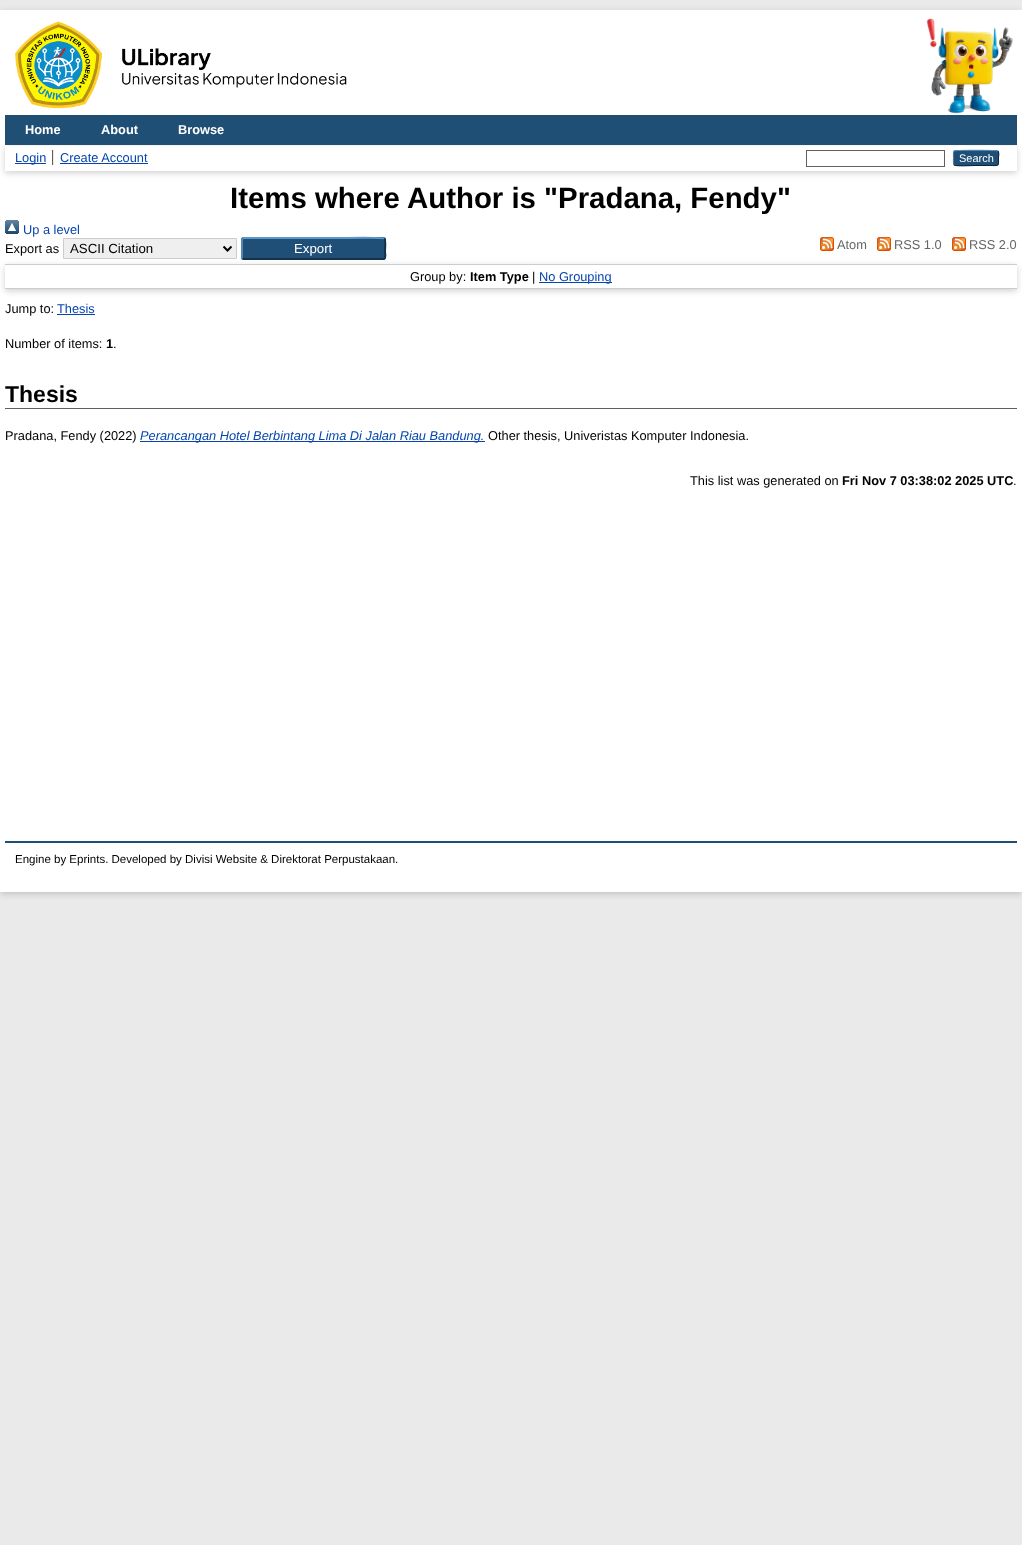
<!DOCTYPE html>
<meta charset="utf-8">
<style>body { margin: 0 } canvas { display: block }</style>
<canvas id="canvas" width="1022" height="1545"></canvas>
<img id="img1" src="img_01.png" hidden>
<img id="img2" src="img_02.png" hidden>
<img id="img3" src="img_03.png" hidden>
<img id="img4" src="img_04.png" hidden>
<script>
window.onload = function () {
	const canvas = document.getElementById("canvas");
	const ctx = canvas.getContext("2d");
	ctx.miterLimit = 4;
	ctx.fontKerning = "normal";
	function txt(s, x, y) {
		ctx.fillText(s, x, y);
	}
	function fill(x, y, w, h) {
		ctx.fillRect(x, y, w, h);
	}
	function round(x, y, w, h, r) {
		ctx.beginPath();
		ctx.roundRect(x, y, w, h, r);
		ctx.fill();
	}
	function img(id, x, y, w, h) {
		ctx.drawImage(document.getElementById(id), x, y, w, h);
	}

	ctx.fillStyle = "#EAEAEA";
	fill(0, 0, 1022, 1545);
	ctx.fillStyle = "rgba(100, 100, 100, 0.3)";
	ctx.filter = "blur(3px)";
	ctx.beginPath();
	ctx.rect(0, 12, 1022, 882);
	ctx.fill();
	ctx.filter = "none";
	ctx.fillStyle = "#FFFFFF";
	fill(0, 10, 1022, 882);
	img("img1", 15, 21, 332, 88);
	img("img2", 926, 18, 87, 96);
	ctx.fillStyle = "#204F76";
	fill(5, 115, 1012, 30);
	ctx.fillStyle = "rgba(100, 100, 100, 0.3)";
	ctx.filter = "blur(3px)";
	ctx.beginPath();
	ctx.rect(5, 148, 1012, 25);
	ctx.fill();
	ctx.filter = "none";
	ctx.fillStyle = "#FFFFFF";
	fill(5, 146, 1012, 25);
	ctx.fillStyle = "#606060";
	fill(52, 150, 1, 15);
	ctx.fillStyle = "#0645AD";
	fill(15, 163, 31, 1);
	ctx.fillStyle = "#E8E8E8";
	fill(53, 150, 1, 15);
	ctx.fillStyle = "#0645AD";
	fill(60, 163, 88, 1);
	ctx.strokeStyle = "#606060";
	ctx.strokeRect(806.5, 150.5, 138, 16);
	ctx.fillStyle = "#1F4F76";
	round(953, 150, 46, 16, 3);
	ctx.beginPath();
	ctx.moveTo(954, 151);
	ctx.bezierCurveTo(955.5, 150, 996.5, 150, 998, 151);
	ctx.strokeStyle = "#5B97C7";
	ctx.stroke();
	ctx.beginPath();
	ctx.moveTo(998, 151);
	ctx.bezierCurveTo(999.5, 153, 998.5, 156, 998.5, 158);
	ctx.bezierCurveTo(998.5, 167, 999, 165.5, 989.5, 165.5);
	ctx.lineTo(976, 165.5);
	ctx.bezierCurveTo(972.5, 165.5, 956, 166.5, 954, 165);
	ctx.strokeStyle = "#0D2131";
	ctx.stroke();
	ctx.beginPath();
	ctx.moveTo(954, 165);
	ctx.bezierCurveTo(953, 163.5, 953.5, 159.5, 953.5, 158);
	ctx.bezierCurveTo(953.5, 156.5, 953, 152.5, 954, 151);
	ctx.strokeStyle = "#5287B3";
	ctx.stroke();
	img("img3", 5, 220, 14, 14);
	ctx.save();
	ctx.beginPath();
	ctx.moveTo(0, 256);
	ctx.lineTo(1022, 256);
	ctx.lineTo(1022, 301);
	ctx.lineTo(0, 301);
	ctx.closePath();
	ctx.moveTo(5, 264);
	ctx.lineTo(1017, 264);
	ctx.lineTo(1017, 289);
	ctx.lineTo(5, 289);
	ctx.closePath();
	ctx.clip("evenodd");
	ctx.fillStyle = "rgba(100, 100, 100, 0.3)";
	ctx.filter = "blur(3px)";
	ctx.beginPath();
	ctx.rect(5, 266, 1012, 25);
	ctx.fill();
	ctx.filter = "none";
	ctx.restore();
	ctx.fillStyle = "#EFEFEF";
	ctx.beginPath();
	ctx.rect(63.5, 238.5, 173, 20);
	ctx.fill();
	ctx.strokeStyle = "#CCCCCC";
	ctx.stroke();
	ctx.beginPath();
	ctx.moveTo(223.5, 246.5);
	ctx.lineTo(227.5, 250.5);
	ctx.lineTo(231.5, 246.5);
	ctx.strokeStyle = "#000000";
	ctx.lineWidth = 2;
	ctx.stroke();
	ctx.fillStyle = "#1F4F76";
	round(241, 237, 145, 23, 3);
	ctx.beginPath();
	ctx.moveTo(242.5, 238.5);
	ctx.lineTo(244, 238);
	ctx.lineTo(336.5, 238);
	ctx.bezierCurveTo(339.5, 238, 383, 237, 384.5, 238.5);
	ctx.strokeStyle = "#5B97C7";
	ctx.stroke();
	ctx.beginPath();
	ctx.moveTo(384.5, 238.5);
	ctx.bezierCurveTo(386, 240, 385, 249, 385, 251.5);
	ctx.bezierCurveTo(385, 253, 386.5, 258, 383.5, 259);
	ctx.lineTo(244, 259);
	ctx.lineTo(242.5, 258.5);
	ctx.strokeStyle = "#13324A";
	ctx.stroke();
	ctx.beginPath();
	ctx.moveTo(242.5, 258.5);
	ctx.bezierCurveTo(242, 258, 242, 257.5, 242, 257);
	ctx.lineTo(242, 240);
	ctx.bezierCurveTo(242, 239.5, 242, 239, 242.5, 238.5);
	ctx.strokeStyle = "#5287B3";
	ctx.stroke();
	img("img4", 820, 237, 14, 14);
	img("img4", 877, 237, 14, 14);
	img("img4", 952, 237, 14, 14);
	ctx.fillStyle = "#CCCCCC";
	fill(5, 264, 1012, 1);
	fill(5, 288, 1012, 1);
	ctx.fillStyle = "#0645AD";
	fill(539, 282, 73, 1);
	fill(57, 314, 38, 1);
	ctx.fillStyle = "#606060";
	fill(5, 408, 1012, 1);
	ctx.fillStyle = "#0645AD";
	fill(140, 441, 345, 1);
	ctx.fillStyle = "#204F76";
	fill(5, 841, 1012, 2);
	ctx.font = "bold 12.8px Liberation Sans";
	ctx.fillStyle = "#FFFFFF";
	txt("Home", 25, 134);
	txt("About", 101, 134);
	txt("Browse", 178, 134);
	ctx.font = "12.8px Liberation Sans";
	ctx.fillStyle = "#0645AD";
	txt("Login", 15, 162);
	txt("Create Account", 60, 162);
	ctx.font = "11px Liberation Sans";
	ctx.fillStyle = "#FFFFFF";
	txt("Search", 959, 162);
	ctx.font = "bold 29.4px Liberation Sans";
	ctx.fillStyle = "#000000";
	txt("Items where Author is \"Pradana, Fendy\"", 230, 208);
	ctx.font = "12.8px Liberation Sans";
	ctx.fillStyle = "#0645AD";
	txt("Up a level", 23, 234);
	ctx.fillStyle = "#000000";
	txt("Export as", 5, 253);
	ctx.font = "13.25px Liberation Sans";
	txt("ASCII Citation", 70, 253);
	ctx.fillStyle = "#FFFFFF";
	txt("Export", 294, 253);
	ctx.font = "12.8px Liberation Sans";
	ctx.fillStyle = "#666666";
	txt("Atom", 837, 249);
	txt("RSS 1.0", 894, 249);
	txt("RSS 2.0", 969, 249);
	ctx.fillStyle = "#000000";
	txt("Group by:", 410, 281);
	ctx.font = "bold 12.8px Liberation Sans";
	txt("Item Type", 470, 281);
	ctx.font = "12.8px Liberation Sans";
	txt("|", 532, 281);
	ctx.fillStyle = "#0645AD";
	txt("No Grouping", 539, 281);
	ctx.fillStyle = "#000000";
	txt("Jump to:", 5, 313);
	ctx.fillStyle = "#0645AD";
	txt("Thesis", 57, 313);
	ctx.fillStyle = "#000000";
	txt("Number of items:", 5, 348);
	ctx.font = "bold 12.8px Liberation Sans";
	txt("1", 106, 348);
	ctx.font = "12.8px Liberation Sans";
	txt(".", 113, 348);
	ctx.font = "bold 23px Liberation Sans";
	txt("Thesis", 5, 402);
	ctx.font = "12.8px Liberation Sans";
	txt("Pradana, Fendy (2022)", 5, 440);
	ctx.font = "italic 12.8px Liberation Sans";
	ctx.fillStyle = "#0645AD";
	txt("Perancangan Hotel Berbintang Lima Di Jalan Riau Bandung.", 140, 440);
	ctx.font = "12.8px Liberation Sans";
	ctx.fillStyle = "#000000";
	txt("Other thesis, Univeristas Komputer Indonesia.", 488, 440);
	txt("This list was generated on", 690, 485);
	ctx.font = "bold 12.8px Liberation Sans";
	txt("Fri Nov 7 03:38:02 2025 UTC", 842, 485);
	ctx.font = "12.8px Liberation Sans";
	txt(".", 1013, 485);
	ctx.font = "11.5px Liberation Sans";
	txt("Engine by Eprints. Developed by Divisi Website & Direktorat Perpustakaan.", 15, 863);
};
</script>
